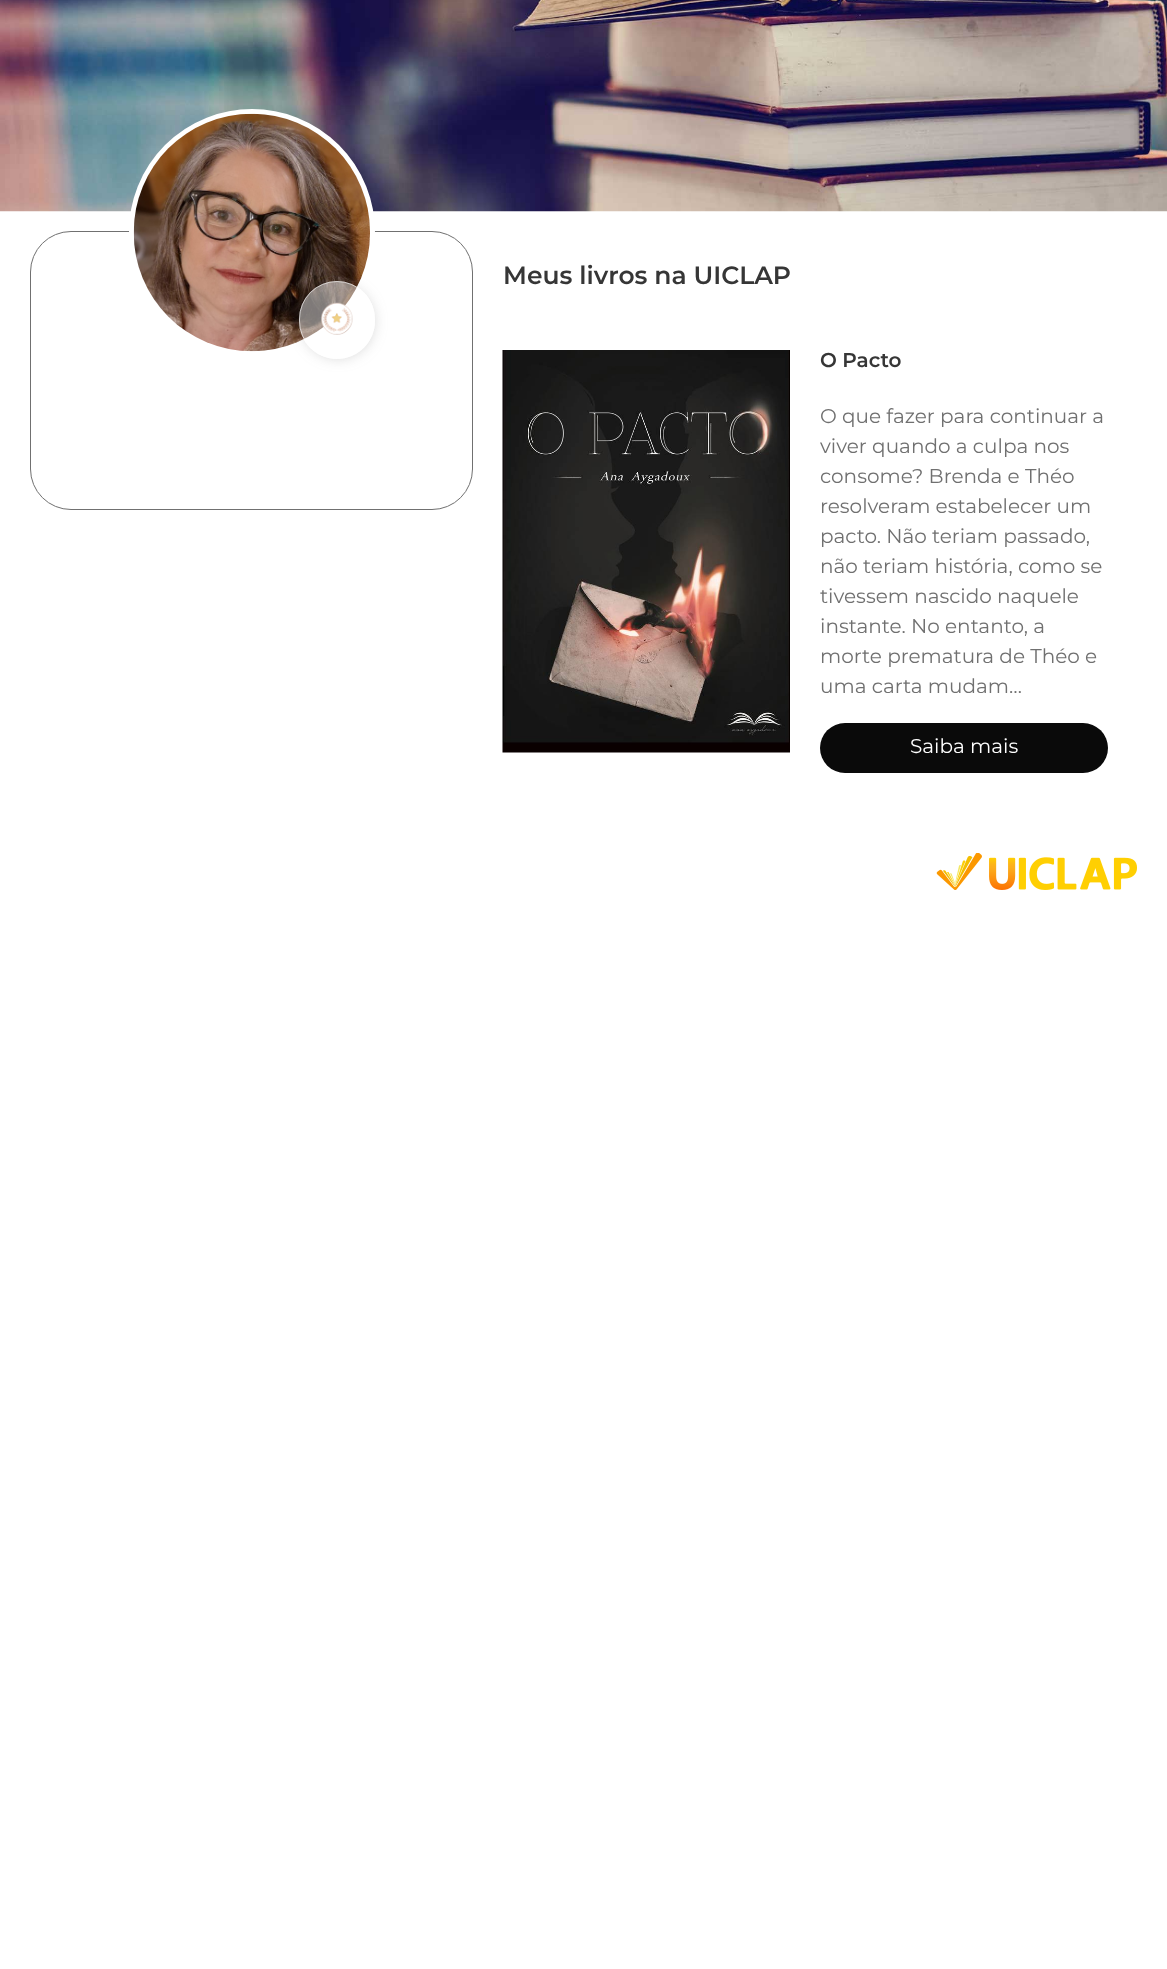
<!DOCTYPE html>
<meta charset="utf-8">
<style>body { margin: 0 } canvas { display: block }</style>
<canvas id="canvas" width="1167" height="1969"></canvas>
<img id="img1" src="img_01.png" hidden>
<img id="img2" src="img_02.png" hidden>
<img id="img3" src="img_03.png" hidden>
<img id="img4" src="img_04.png" hidden>
<img id="img5" src="img_05.png" hidden>
<script>
window.onload = function () {
	const canvas = document.getElementById("canvas");
	const ctx = canvas.getContext("2d");
	ctx.miterLimit = 4;
	ctx.fontKerning = "normal";
	function txt(s, x, y) {
		ctx.fillText(s, x, y);
	}
	function fill(x, y, w, h) {
		ctx.fillRect(x, y, w, h);
	}
	function round(x, y, w, h, r) {
		ctx.beginPath();
		ctx.roundRect(x, y, w, h, r);
		ctx.fill();
	}
	function img(id, x, y, w, h) {
		ctx.drawImage(document.getElementById(id), x, y, w, h);
	}

	ctx.fillStyle = "#FFFFFF";
	fill(0, 0, 1167, 1969);
	img("img1", 0, 0, 1167, 212);
	ctx.beginPath();
	ctx.roundRect(30.5, 231.5, 442, 278, 40.5);
	ctx.strokeStyle = "#707070";
	ctx.stroke();
	ctx.beginPath();
	ctx.roundRect(131.5, 111.5, 241, 242, 120.5);
	ctx.fill();
	ctx.strokeStyle = "#FFFFFF";
	ctx.lineWidth = 5;
	ctx.stroke();
	img("img2", 133, 113, 237, 239);
	ctx.save();
	ctx.beginPath();
	ctx.moveTo(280, 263);
	ctx.lineTo(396, 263);
	ctx.lineTo(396, 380);
	ctx.lineTo(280, 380);
	ctx.closePath();
	ctx.moveTo(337, 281);
	ctx.bezierCurveTo(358, 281, 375, 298, 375, 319);
	ctx.lineTo(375, 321);
	ctx.bezierCurveTo(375, 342, 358, 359, 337, 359);
	ctx.bezierCurveTo(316, 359, 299, 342, 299, 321);
	ctx.lineTo(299, 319);
	ctx.bezierCurveTo(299, 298, 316, 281, 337, 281);
	ctx.closePath();
	ctx.clip("evenodd");
	ctx.fillStyle = "rgba(112, 112, 112, 0.44)";
	ctx.filter = "blur(8px)";
	ctx.beginPath();
	ctx.roundRect(305, 288, 66, 67, 33);
	ctx.fill();
	ctx.filter = "none";
	ctx.restore();
	ctx.fillStyle = "rgba(255, 255, 255, 0.47)";
	round(299, 281, 76, 78, 38);
	ctx.beginPath();
	ctx.roundRect(299.5, 281.5, 75, 77, 37.5);
	ctx.strokeStyle = "rgba(255, 255, 255, 0.6)";
	ctx.lineWidth = 1;
	ctx.stroke();
	img("img3", 320, 302, 33, 33);
	img("img4", 502, 350, 288, 403);
	ctx.fillStyle = "#0A0A0A";
	round(820, 723, 288, 50, 25);
	img("img5", 936, 853, 201, 37);
	ctx.font = "600 25px Montserrat";
	ctx.fillStyle = "#363636";
	txt("Meus livros na UICLAP", 503, 284);
	ctx.font = "600 20px Montserrat";
	txt("O Pacto", 820, 367);
	ctx.font = "20px Montserrat";
	ctx.fillStyle = "#707070";
	txt("O que fazer para continuar a", 820, 423);
	txt("viver quando a culpa nos", 820, 453);
	txt("consome? Brenda e Théo", 820, 483);
	txt("resolveram estabelecer um", 820, 513);
	txt("pacto. Não teriam passado,", 820, 543);
	txt("não teriam história, como se", 820, 573);
	txt("tivessem nascido naquele", 820, 603);
	txt("instante. No entanto, a", 820, 633);
	txt("morte prematura de Théo e", 820, 663);
	txt("uma carta mudam…", 820, 693);
	ctx.fillStyle = "#FFFFFF";
	txt("Saiba mais", 910, 753);
};
</script>
